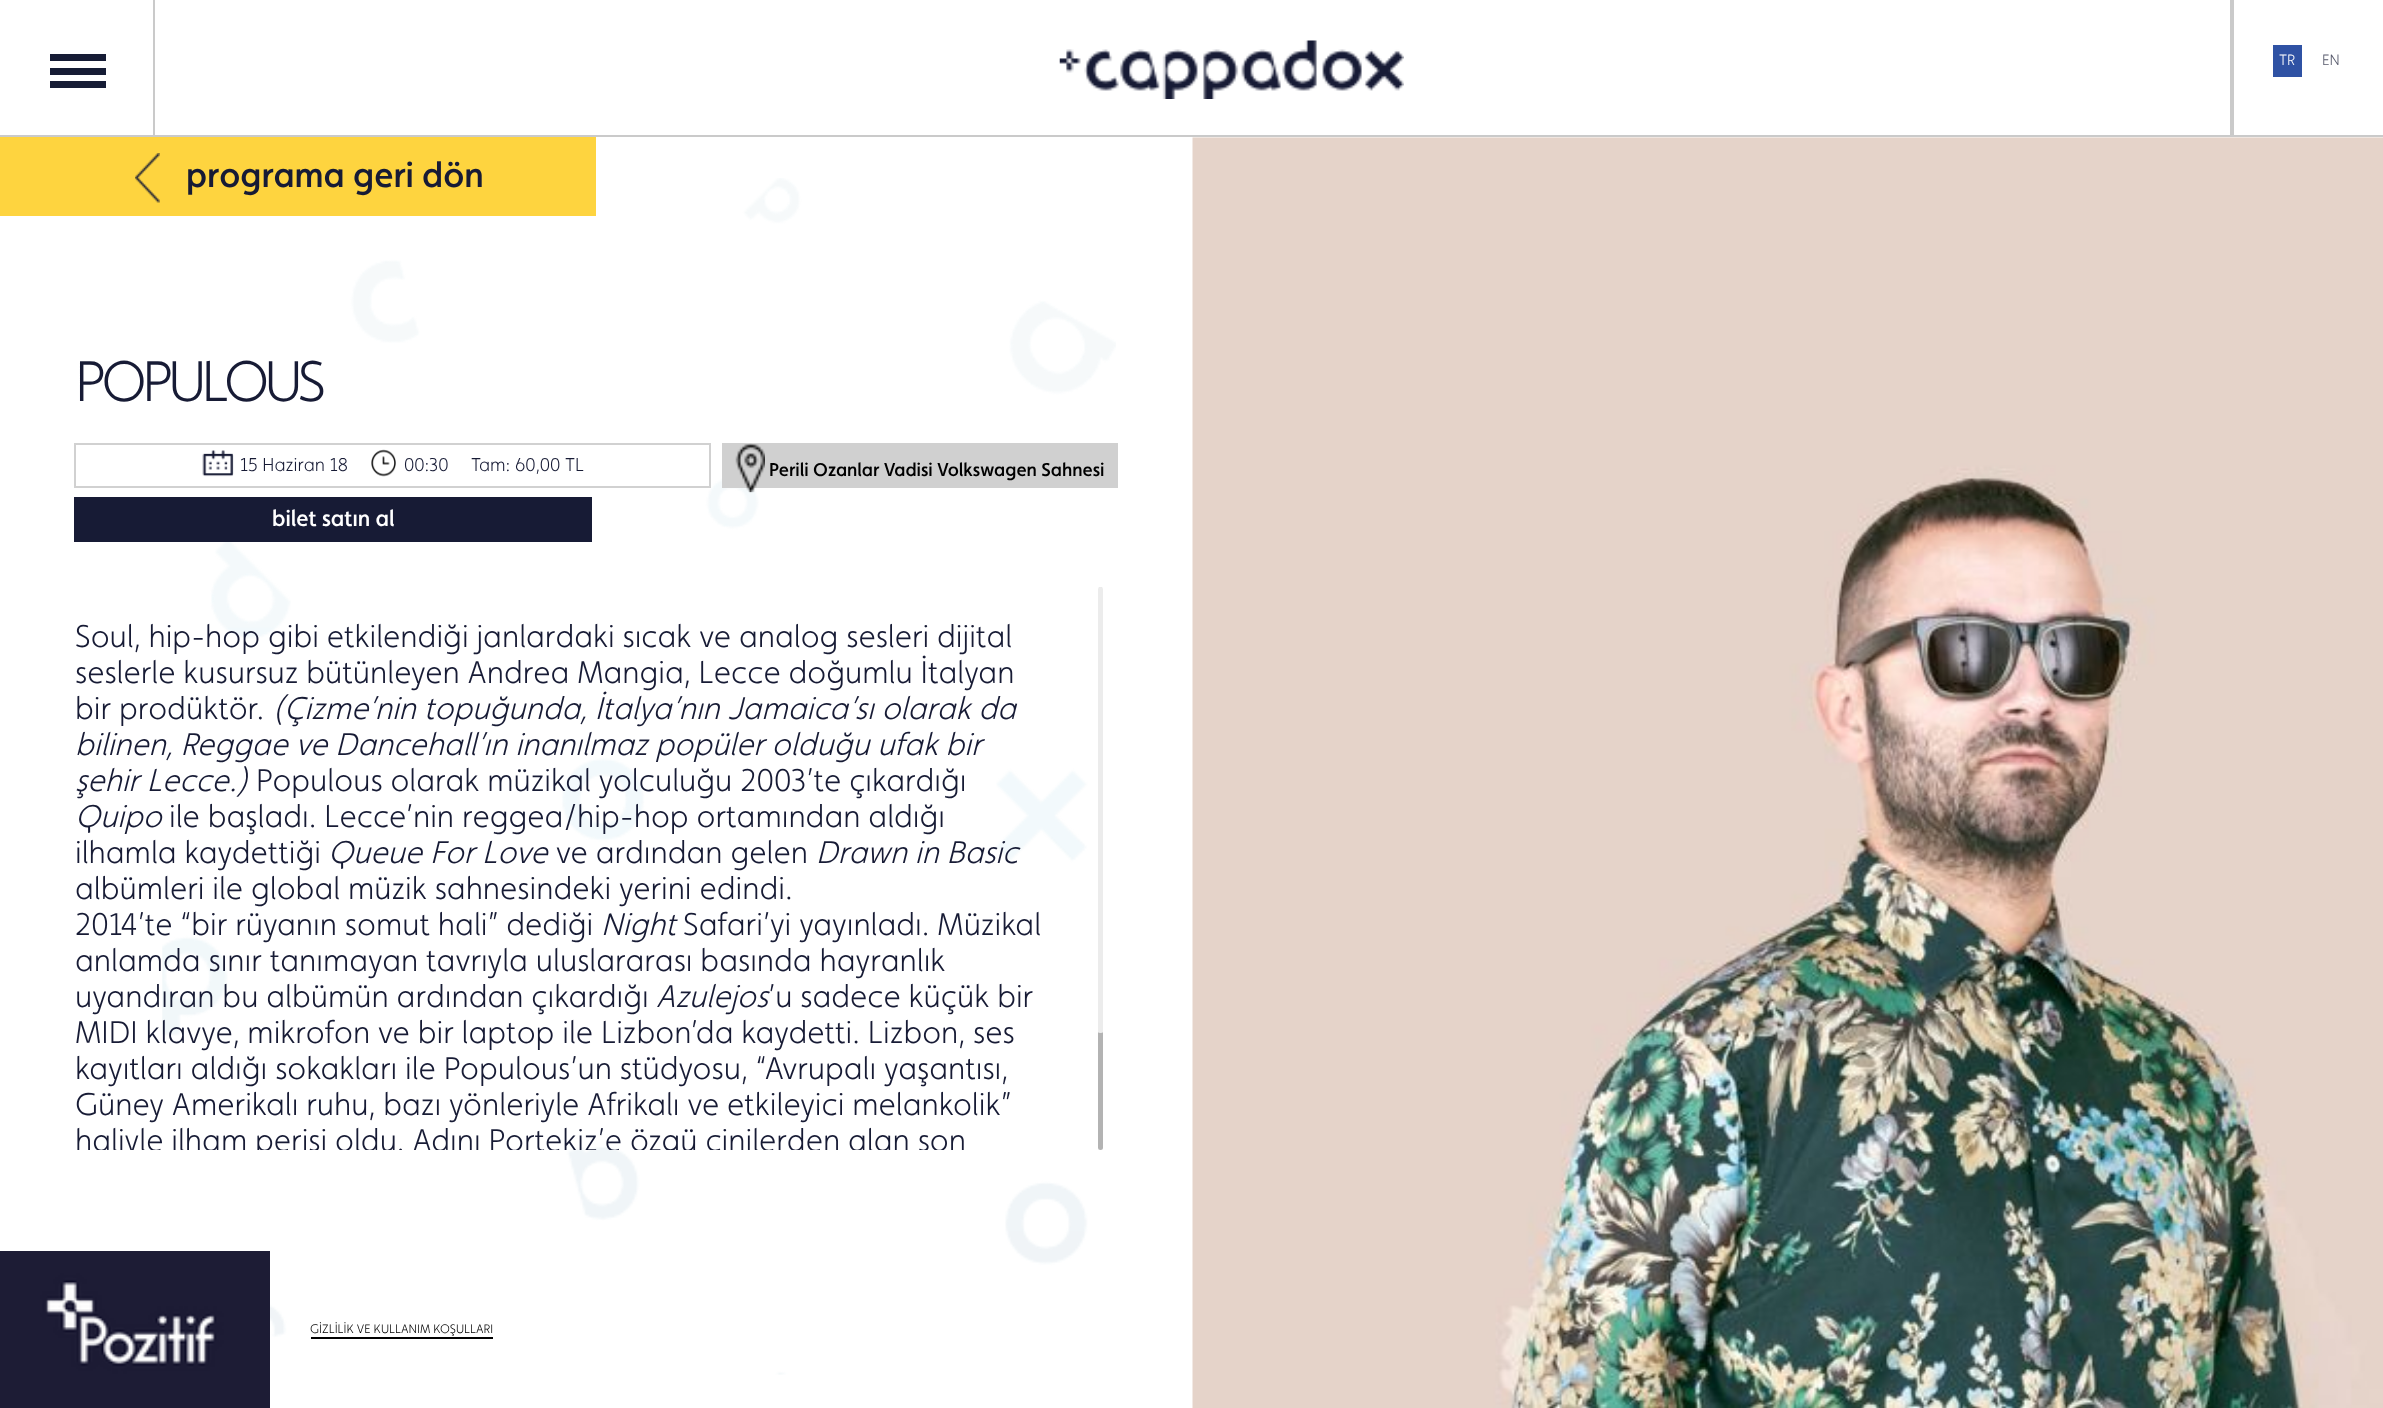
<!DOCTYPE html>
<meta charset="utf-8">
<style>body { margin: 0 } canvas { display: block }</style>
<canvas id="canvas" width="2383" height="1408"></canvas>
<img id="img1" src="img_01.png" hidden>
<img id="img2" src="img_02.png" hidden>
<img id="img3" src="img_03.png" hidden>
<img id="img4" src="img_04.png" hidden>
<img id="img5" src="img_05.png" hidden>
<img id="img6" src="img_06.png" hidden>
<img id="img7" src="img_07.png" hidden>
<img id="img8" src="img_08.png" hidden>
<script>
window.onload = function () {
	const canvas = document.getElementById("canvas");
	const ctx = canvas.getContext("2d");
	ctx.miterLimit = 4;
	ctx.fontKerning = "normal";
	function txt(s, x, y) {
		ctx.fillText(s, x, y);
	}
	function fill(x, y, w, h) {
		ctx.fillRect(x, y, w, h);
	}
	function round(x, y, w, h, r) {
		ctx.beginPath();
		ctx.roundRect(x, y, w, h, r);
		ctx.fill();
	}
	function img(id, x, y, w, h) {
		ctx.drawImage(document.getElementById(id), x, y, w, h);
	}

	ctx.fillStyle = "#FFFFFF";
	fill(0, 0, 2383, 1408);
	ctx.fillStyle = "#161C35";
	fill(50, 54, 56, 7);
	fill(50, 68, 56, 7);
	fill(50, 81, 56, 7);
	ctx.fillStyle = "#CACACA";
	fill(0, 135, 2383, 2);
	fill(153, 0, 2, 137);
	img("img1", 1059, 40, 345, 59);
	fill(2230, 0, 4, 137);
	ctx.fillStyle = "#2F52A4";
	fill(2273, 45, 29, 32);
	img("img2", 162, 178, 954, 1197);
	ctx.fillStyle = "#FED43F";
	fill(0, 137, 596, 79);
	img("img3", 135, 153, 25, 50);
	ctx.strokeStyle = "#D1D1D1";
	ctx.lineWidth = 2;
	ctx.strokeRect(75, 444, 635, 43);
	img("img4", 202, 450, 32, 27);
	img("img5", 371, 449, 25, 28);
	ctx.fillStyle = "#D0D0D0";
	fill(722, 443, 396, 45);
	img("img6", 735, 443, 30, 50);
	ctx.fillStyle = "#171B35";
	fill(74, 497, 518, 45);
	ctx.fillStyle = "#B3B3B3";
	round(1098, 587, 5, 563, 2.5);
	ctx.fillStyle = "rgba(255, 255, 255, 0.75)";
	round(1096, 587, 9, 446, 4.5);
	img("img7", 1192, 137, 1191, 1271);
	img("img8", 0, 1251, 270, 157);
	ctx.fillStyle = "#000000";
	fill(311, 1337, 182, 2);
	ctx.font = "300 15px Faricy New";
	ctx.fillStyle = "#FFFFFF";
	txt("TR", 2279, 65);
	ctx.fillStyle = "#56596B";
	txt("EN", 2322, 65);
	ctx.font = "500 35.25px Faricy New";
	ctx.fillStyle = "#171B35";
	txt("programa geri dön", 186, 187);
	ctx.letterSpacing = "-4.5px";
	ctx.font = "300 57.25px Faricy New";
	txt("POPULOUS", 75, 401);
	ctx.letterSpacing = "0px";
	ctx.font = "300 18.6px Faricy New";
	txt("15 Haziran 18", 240, 471);
	txt("00:30", 404, 471);
	txt("Tam: 60,00 TL", 471, 471);
	ctx.font = "500 18.6px Faricy New";
	ctx.fillStyle = "#000000";
	txt("Perili Ozanlar Vadisi Volkswagen Sahnesi", 769, 476);
	ctx.font = "500 22.5px Faricy New";
	ctx.fillStyle = "#FFFFFF";
	txt("bilet satın al", 272, 526);
	ctx.font = "300 31.5px Faricy New";
	ctx.fillStyle = "#171B35";
	txt("Soul, hip-hop gibi etkilendiği janlardaki sıcak ve analog sesleri dijital", 75, 647);
	txt("seslerle kusursuz bütünleyen Andrea Mangia, Lecce doğumlu İtalyan", 75, 683);
	txt("bir prodüktör.", 75, 719);
	ctx.font = "italic 300 31.5px Faricy New";
	txt("(Çizme’nin topuğunda, İtalya’nın Jamaica’sı olarak da", 272, 719);
	txt("bilinen, Reggae ve Dancehall’ın inanılmaz popüler olduğu ufak bir", 75, 755);
	txt("şehir Lecce.)", 75, 791);
	ctx.font = "300 31.5px Faricy New";
	txt("Populous olarak müzikal yolculuğu 2003’te çıkardığı", 256, 791);
	ctx.font = "italic 300 31.5px Faricy New";
	txt("Quipo", 75, 827);
	ctx.font = "300 31.5px Faricy New";
	txt("ile başladı. Lecce’nin reggea/hip-hop ortamından aldığı", 169, 827);
	txt("ilhamla kaydettiği", 75, 863);
	ctx.font = "italic 300 31.5px Faricy New";
	txt("Queue For Love", 328, 863);
	ctx.font = "300 31.5px Faricy New";
	txt("ve ardından gelen", 556, 863);
	ctx.font = "italic 300 31.5px Faricy New";
	txt("Drawn in Basic", 816, 863);
	ctx.font = "300 31.5px Faricy New";
	txt("albümleri ile global müzik sahnesindeki yerini edindi.", 75, 899);
	txt("2014’te “bir rüyanın somut hali” dediği", 75, 935);
	ctx.font = "italic 300 31.5px Faricy New";
	txt("Night", 601, 935);
	ctx.font = "300 31.5px Faricy New";
	txt("Safari’yi yayınladı. Müzikal", 683, 935);
	txt("anlamda sınır tanımayan tavrıyla uluslararası basında hayranlık", 75, 971);
	txt("uyandıran bu albümün ardından çıkardığı", 75, 1007);
	ctx.font = "italic 300 31.5px Faricy New";
	txt("Azulejos", 656, 1007);
	ctx.font = "300 31.5px Faricy New";
	txt("’u sadece küçük bir", 768, 1007);
	txt("MIDI klavye, mikrofon ve bir laptop ile Lizbon’da kaydetti. Lizbon, ses", 75, 1043);
	txt("kayıtları aldığı sokakları ile Populous’un stüdyosu, “Avrupalı yaşantısı,", 75, 1079);
	txt("Güney Amerikalı ruhu, bazı yönleriyle Afrikalı ve etkileyici melankolik”", 75, 1115);
	ctx.save();
	ctx.beginPath();
	ctx.rect(74, 587, 977, 563);
	ctx.clip();
	txt("haliyle ilham perisi oldu. Adını Portekiz’e özgü çinilerden alan son", 75, 1151);
	ctx.restore();
	ctx.font = "300 12.4px Faricy New";
	ctx.fillStyle = "#000000";
	txt("GİZLİLİK VE KULLANIM KOŞULLARI", 310, 1333);
};
</script>
